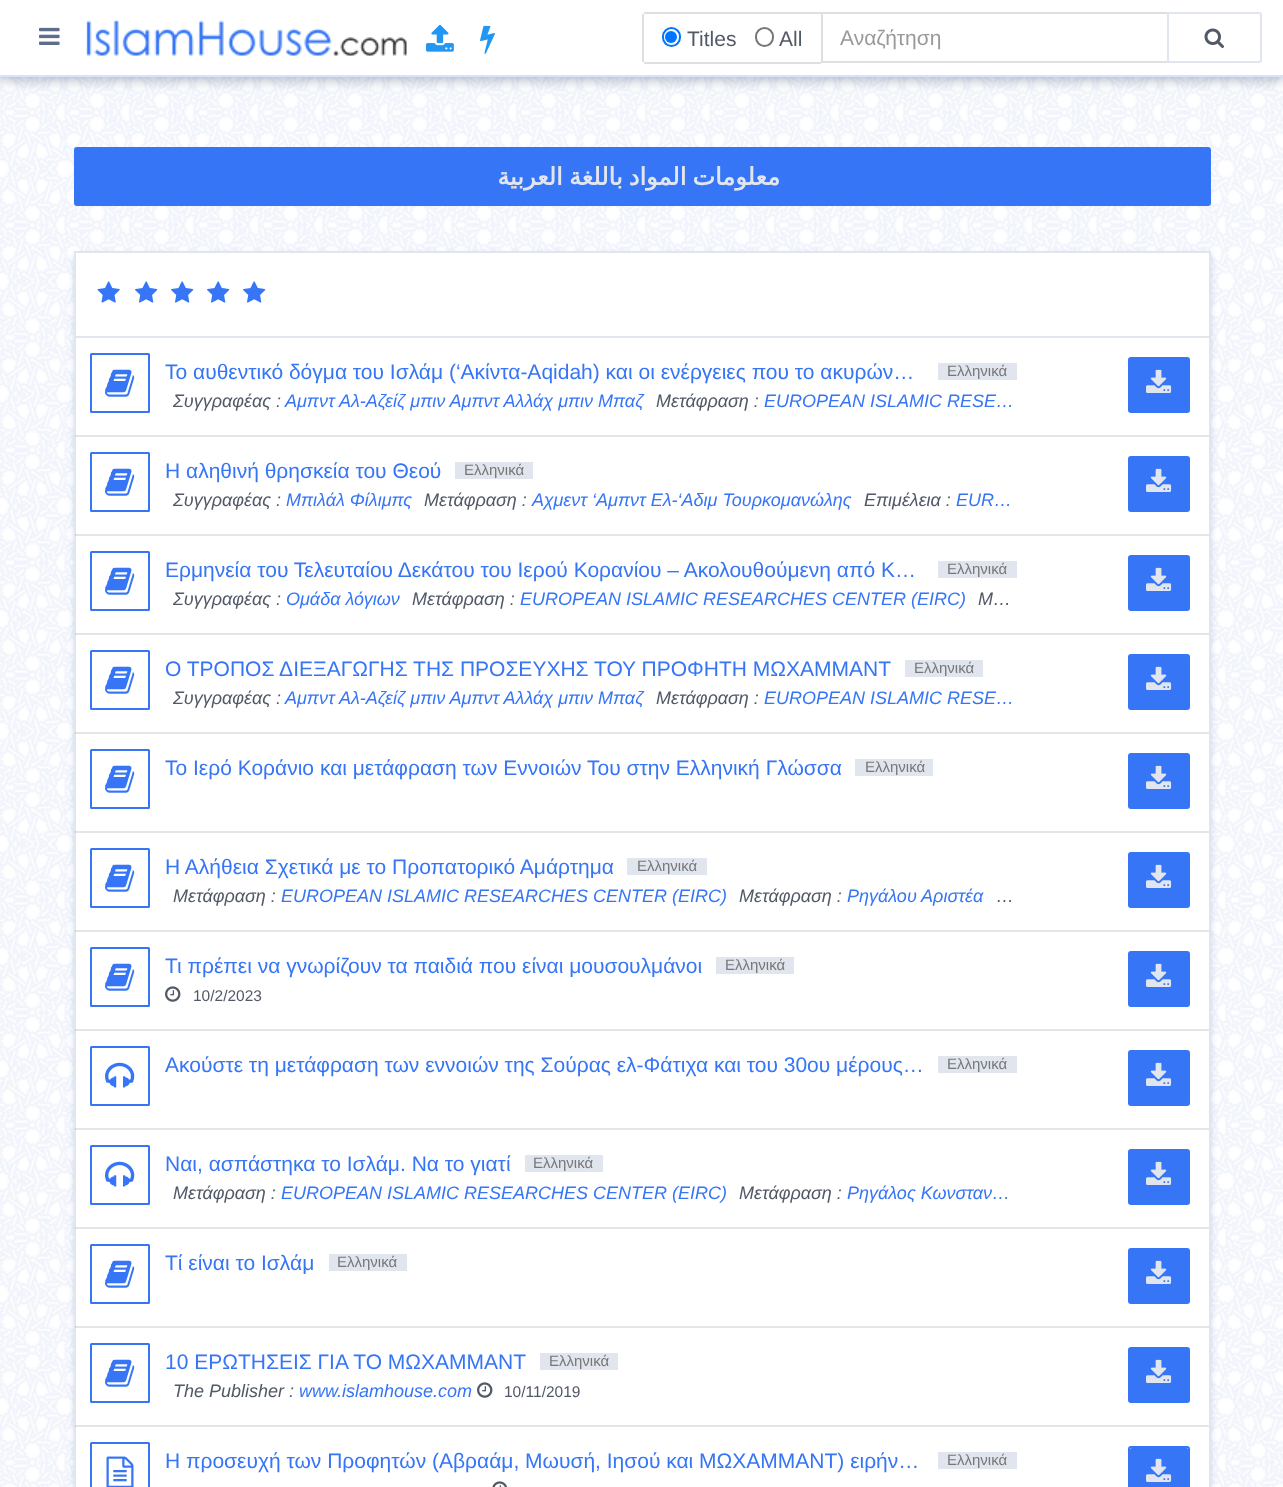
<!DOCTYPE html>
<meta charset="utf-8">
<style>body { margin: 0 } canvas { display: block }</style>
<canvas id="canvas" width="1283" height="1487"></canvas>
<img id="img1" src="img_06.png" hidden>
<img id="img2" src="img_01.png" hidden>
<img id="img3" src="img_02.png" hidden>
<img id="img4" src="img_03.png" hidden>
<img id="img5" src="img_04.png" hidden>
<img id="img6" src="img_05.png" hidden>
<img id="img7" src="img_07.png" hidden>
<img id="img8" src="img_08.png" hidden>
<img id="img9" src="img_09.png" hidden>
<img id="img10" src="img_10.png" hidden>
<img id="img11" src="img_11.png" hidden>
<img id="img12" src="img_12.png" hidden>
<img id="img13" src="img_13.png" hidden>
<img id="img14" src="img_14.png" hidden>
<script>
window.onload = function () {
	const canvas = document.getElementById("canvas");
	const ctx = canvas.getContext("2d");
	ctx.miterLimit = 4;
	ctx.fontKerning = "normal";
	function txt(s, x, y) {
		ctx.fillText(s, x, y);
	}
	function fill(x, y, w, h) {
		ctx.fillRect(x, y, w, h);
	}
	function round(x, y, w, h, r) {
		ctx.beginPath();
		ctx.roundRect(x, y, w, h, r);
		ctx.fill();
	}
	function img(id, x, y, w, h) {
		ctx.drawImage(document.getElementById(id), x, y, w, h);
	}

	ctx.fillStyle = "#FFFFFF";
	fill(0, 0, 1283, 1487);
	img("img1", 0, 77, 1283, 1410);
	ctx.fillStyle = "rgba(45, 62, 95, 0.32)";
	ctx.filter = "blur(6px)";
	ctx.beginPath();
	ctx.rect(0, 5, 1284, 76);
	ctx.fill();
	ctx.filter = "none";
	ctx.fillStyle = "#FFFFFF";
	fill(0, 0, 1283, 75);
	ctx.fillStyle = "#D7E3FD";
	fill(0, 75, 1283, 2);
	img("img2", 39, 27, 21, 18);
	img("img3", 86, 20, 321, 36);
	img("img4", 426, 24, 28, 28);
	img("img5", 480, 25, 15, 29);
	ctx.fillStyle = "#DFDFDF";
	fill(644, 12, 177, 2);
	fill(644, 62, 177, 2);
	fill(642, 14, 2, 48);
	ctx.beginPath();
	ctx.roundRect(663, 28, 17, 18, 8.5);
	ctx.strokeStyle = "#0075FF";
	ctx.lineWidth = 2;
	ctx.stroke();
	ctx.fillStyle = "#0075FF";
	ctx.beginPath();
	ctx.arc(671, 37, 6, 0, Math.PI * 2);
	ctx.fill();
	ctx.beginPath();
	ctx.roundRect(756, 28, 17, 18, 8.5);
	ctx.strokeStyle = "#767676";
	ctx.stroke();
	ctx.strokeStyle = "#DFDFDF";
	ctx.strokeRect(822, 13, 346, 49);
	ctx.beginPath();
	ctx.roundRect(1168, 13, 93, 49, [0, 2, 2, 0]);
	ctx.strokeStyle = "#E0E5EE";
	ctx.stroke();
	img("img6", 1204, 28, 20, 20);
	ctx.fillStyle = "#3575F6";
	ctx.beginPath();
	ctx.roundRect(75, 148, 1135, 57, 2);
	ctx.fill();
	ctx.strokeStyle = "#3575F6";
	ctx.stroke();
	ctx.fillStyle = "rgba(29, 79, 179, 0.2)";
	ctx.filter = "blur(3px)";
	ctx.beginPath();
	ctx.rect(74, 254, 1137, 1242);
	ctx.fill();
	ctx.filter = "none";
	ctx.fillStyle = "#FFFFFF";
	ctx.beginPath();
	ctx.rect(75, 252, 1135, 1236);
	ctx.fill();
	ctx.strokeStyle = "#E0E5EE";
	ctx.stroke();
	ctx.fillStyle = "#E0E5EE";
	fill(75, 336, 1134, 2);
	img("img7", 97, 281, 23, 22);
	img("img8", 135, 281, 23, 22);
	img("img8", 171, 281, 23, 22);
	img("img8", 207, 281, 23, 22);
	img("img8", 243, 281, 23, 22);
	ctx.fillStyle = "rgba(0, 0, 0, 0.1)";
	fill(75, 435, 1134, 2);
	ctx.beginPath();
	ctx.roundRect(91, 354, 58, 58, 0.5);
	ctx.strokeStyle = "#3575F6";
	ctx.stroke();
	img("img9", 105, 369, 30, 28);
	ctx.fillStyle = "#E0E5EE";
	fill(938, 363, 79, 17);
	ctx.fillStyle = "#3575F6";
	ctx.beginPath();
	ctx.roundRect(1129, 358, 60, 54, 2);
	ctx.fill();
	ctx.stroke();
	img("img10", 1146, 369, 26, 24);
	ctx.fillStyle = "rgba(0, 0, 0, 0.1)";
	fill(75, 534, 1134, 2);
	ctx.beginPath();
	ctx.roundRect(91, 453, 58, 58, 0.5);
	ctx.stroke();
	img("img9", 105, 468, 30, 28);
	ctx.fillStyle = "#E0E5EE";
	fill(455, 462, 78, 17);
	ctx.fillStyle = "#3575F6";
	ctx.beginPath();
	ctx.roundRect(1129, 457, 60, 54, 2);
	ctx.fill();
	ctx.stroke();
	img("img10", 1146, 468, 26, 24);
	ctx.fillStyle = "rgba(0, 0, 0, 0.1)";
	fill(75, 633, 1134, 2);
	ctx.beginPath();
	ctx.roundRect(91, 552, 58, 58, 0.5);
	ctx.stroke();
	img("img9", 105, 567, 30, 28);
	ctx.fillStyle = "#E0E5EE";
	fill(938, 561, 79, 17);
	ctx.fillStyle = "#3575F6";
	ctx.beginPath();
	ctx.roundRect(1129, 556, 60, 54, 2);
	ctx.fill();
	ctx.stroke();
	img("img10", 1146, 567, 26, 24);
	ctx.fillStyle = "rgba(0, 0, 0, 0.1)";
	fill(75, 732, 1134, 2);
	ctx.beginPath();
	ctx.roundRect(91, 651, 58, 58, 0.5);
	ctx.stroke();
	img("img9", 105, 666, 30, 28);
	ctx.fillStyle = "#E0E5EE";
	fill(905, 660, 78, 17);
	ctx.fillStyle = "#3575F6";
	ctx.beginPath();
	ctx.roundRect(1129, 655, 60, 54, 2);
	ctx.fill();
	ctx.stroke();
	img("img10", 1146, 666, 26, 24);
	ctx.fillStyle = "rgba(0, 0, 0, 0.1)";
	fill(75, 831, 1134, 2);
	ctx.beginPath();
	ctx.roundRect(91, 750, 58, 58, 0.5);
	ctx.stroke();
	img("img9", 105, 765, 30, 28);
	ctx.fillStyle = "#E0E5EE";
	fill(855, 759, 78, 17);
	ctx.fillStyle = "#3575F6";
	ctx.beginPath();
	ctx.roundRect(1129, 754, 60, 54, 2);
	ctx.fill();
	ctx.stroke();
	img("img10", 1146, 765, 26, 24);
	ctx.fillStyle = "rgba(0, 0, 0, 0.1)";
	fill(75, 930, 1134, 2);
	ctx.beginPath();
	ctx.roundRect(91, 849, 58, 58, 0.5);
	ctx.stroke();
	img("img9", 105, 864, 30, 28);
	ctx.fillStyle = "#E0E5EE";
	fill(627, 858, 80, 17);
	ctx.fillStyle = "#3575F6";
	ctx.beginPath();
	ctx.roundRect(1129, 853, 60, 54, 2);
	ctx.fill();
	ctx.stroke();
	img("img10", 1146, 864, 26, 24);
	ctx.fillStyle = "rgba(0, 0, 0, 0.1)";
	fill(75, 1029, 1134, 2);
	ctx.beginPath();
	ctx.roundRect(91, 948, 58, 58, 0.5);
	ctx.stroke();
	img("img9", 105, 963, 30, 28);
	ctx.fillStyle = "#E0E5EE";
	fill(716, 957, 78, 17);
	img("img11", 165, 986, 16, 16);
	ctx.fillStyle = "#3575F6";
	ctx.beginPath();
	ctx.roundRect(1129, 952, 60, 54, 2);
	ctx.fill();
	ctx.stroke();
	img("img10", 1146, 963, 26, 24);
	ctx.fillStyle = "rgba(0, 0, 0, 0.1)";
	fill(75, 1128, 1134, 2);
	ctx.beginPath();
	ctx.roundRect(91, 1047, 58, 58, 0.5);
	ctx.stroke();
	img("img12", 105, 1062, 30, 26);
	ctx.fillStyle = "#E0E5EE";
	fill(938, 1056, 79, 17);
	ctx.fillStyle = "#3575F6";
	ctx.beginPath();
	ctx.roundRect(1129, 1051, 60, 54, 2);
	ctx.fill();
	ctx.stroke();
	img("img10", 1146, 1062, 26, 24);
	ctx.fillStyle = "rgba(0, 0, 0, 0.1)";
	fill(75, 1227, 1134, 2);
	ctx.beginPath();
	ctx.roundRect(91, 1146, 58, 58, 0.5);
	ctx.stroke();
	img("img12", 105, 1161, 30, 26);
	ctx.fillStyle = "#E0E5EE";
	fill(525, 1155, 78, 17);
	ctx.fillStyle = "#3575F6";
	ctx.beginPath();
	ctx.roundRect(1129, 1150, 60, 54, 2);
	ctx.fill();
	ctx.stroke();
	img("img10", 1146, 1161, 26, 24);
	ctx.fillStyle = "rgba(0, 0, 0, 0.1)";
	fill(75, 1326, 1134, 2);
	ctx.beginPath();
	ctx.roundRect(91, 1245, 58, 58, 0.5);
	ctx.stroke();
	img("img9", 105, 1260, 30, 28);
	ctx.fillStyle = "#E0E5EE";
	fill(329, 1254, 78, 17);
	ctx.fillStyle = "#3575F6";
	ctx.beginPath();
	ctx.roundRect(1129, 1249, 60, 54, 2);
	ctx.fill();
	ctx.stroke();
	img("img10", 1146, 1260, 26, 24);
	ctx.fillStyle = "rgba(0, 0, 0, 0.1)";
	fill(75, 1425, 1134, 2);
	ctx.beginPath();
	ctx.roundRect(91, 1344, 58, 58, 0.5);
	ctx.stroke();
	img("img9", 105, 1359, 30, 28);
	ctx.fillStyle = "#E0E5EE";
	fill(540, 1353, 78, 17);
	img("img11", 477, 1382, 16, 16);
	ctx.fillStyle = "#3575F6";
	ctx.beginPath();
	ctx.roundRect(1129, 1348, 60, 54, 2);
	ctx.fill();
	ctx.stroke();
	img("img10", 1146, 1359, 26, 24);
	ctx.beginPath();
	ctx.roundRect(91, 1443, 58, 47, 0.5);
	ctx.stroke();
	img("img13", 106, 1456, 28, 31);
	ctx.fillStyle = "#E0E5EE";
	fill(938, 1452, 79, 17);
	img("img14", 492, 1481, 16, 6);
	ctx.fillStyle = "#3575F6";
	round(1130, 1448, 58, 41, 1.5);
	ctx.beginPath();
	ctx.roundRect(1129, 1447, 60, 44, 2);
	ctx.stroke();
	img("img10", 1146, 1458, 26, 24);
	ctx.font = "21px Liberation Sans";
	ctx.fillStyle = "#515866";
	txt("Titles", 687, 46);
	txt("All", 779, 46);
	ctx.fillStyle = "#999999";
	txt("Αναζήτηση", 840, 45);
	ctx.wordSpacing = "-1.5px";
	ctx.direction = "rtl";
	ctx.font = "bold 24px DejaVu Sans";
	ctx.fillStyle = "#E0E5EE";
	txt("معلومات المواد باللغة العربية", 780, 185);
	ctx.wordSpacing = "0px";
	ctx.direction = "ltr";
	ctx.font = "21px Liberation Sans";
	ctx.fillStyle = "#3575F6";
	txt("Το αυθεντικό δόγμα του Ισλάμ (‘Ακίντα-Aqidah) και οι ενέργειες που το ακυρών…", 165, 379);
	ctx.font = "15px Liberation Sans";
	ctx.fillStyle = "#777777";
	txt("Ελληνικά", 947, 376);
	ctx.font = "italic 18px Liberation Sans";
	ctx.fillStyle = "#515866";
	txt("Συγγραφέας :", 173, 407);
	ctx.fillStyle = "#3575F6";
	txt("Αμπντ Αλ-Αζείζ μπιν Αμπντ Αλλάχ μπιν Μπαζ", 285, 407);
	ctx.fillStyle = "#515866";
	txt("Μετάφραση :", 656, 407);
	ctx.fillStyle = "#3575F6";
	txt("EUROPEAN ISLAMIC RESE…", 764, 407);
	ctx.font = "21px Liberation Sans";
	txt("Η αληθινή θρησκεία του Θεού", 165, 478);
	ctx.font = "15px Liberation Sans";
	ctx.fillStyle = "#777777";
	txt("Ελληνικά", 464, 475);
	ctx.font = "italic 18px Liberation Sans";
	ctx.fillStyle = "#515866";
	txt("Συγγραφέας :", 173, 506);
	ctx.fillStyle = "#3575F6";
	txt("Μπιλάλ Φίλιμπς", 286, 506);
	ctx.fillStyle = "#515866";
	txt("Μετάφραση :", 424, 506);
	ctx.fillStyle = "#3575F6";
	txt("Αχμεντ ‘Αμπντ Ελ-‘Αδιμ Τουρκομανώλης", 532, 506);
	ctx.fillStyle = "#515866";
	txt("Επιμέλεια :", 864, 506);
	ctx.fillStyle = "#3575F6";
	txt("EUR…", 956, 506);
	ctx.font = "21px Liberation Sans";
	txt("Ερμηνεία του Τελευταίου Δεκάτου του Ιερού Κορανίου – Ακολουθούμενη από Κ…", 165, 577);
	ctx.font = "15px Liberation Sans";
	ctx.fillStyle = "#777777";
	txt("Ελληνικά", 947, 574);
	ctx.font = "italic 18px Liberation Sans";
	ctx.fillStyle = "#515866";
	txt("Συγγραφέας :", 173, 605);
	ctx.fillStyle = "#3575F6";
	txt("Ομάδα λόγιων", 286, 605);
	ctx.fillStyle = "#515866";
	txt("Μετάφραση :", 412, 605);
	ctx.fillStyle = "#3575F6";
	txt("EUROPEAN ISLAMIC RESEARCHES CENTER (EIRC)", 520, 605);
	ctx.fillStyle = "#515866";
	txt("Μ…", 978, 605);
	ctx.font = "21px Liberation Sans";
	ctx.fillStyle = "#3575F6";
	txt("Ο ΤΡΟΠΟΣ ΔΙΕΞΑΓΩΓΗΣ ΤΗΣ ΠΡΟΣΕΥΧΗΣ ΤΟΥ ΠΡΟΦΗΤΗ ΜΩΧΑΜΜΑΝΤ", 165, 676);
	ctx.font = "15px Liberation Sans";
	ctx.fillStyle = "#777777";
	txt("Ελληνικά", 914, 673);
	ctx.font = "italic 18px Liberation Sans";
	ctx.fillStyle = "#515866";
	txt("Συγγραφέας :", 173, 704);
	ctx.fillStyle = "#3575F6";
	txt("Αμπντ Αλ-Αζείζ μπιν Αμπντ Αλλάχ μπιν Μπαζ", 285, 704);
	ctx.fillStyle = "#515866";
	txt("Μετάφραση :", 656, 704);
	ctx.fillStyle = "#3575F6";
	txt("EUROPEAN ISLAMIC RESE…", 764, 704);
	ctx.font = "21px Liberation Sans";
	txt("Το Ιερό Κοράνιο και μετάφραση των Εννοιών Του στην Ελληνική Γλώσσα", 165, 775);
	ctx.font = "15px Liberation Sans";
	ctx.fillStyle = "#777777";
	txt("Ελληνικά", 865, 772);
	ctx.font = "21px Liberation Sans";
	ctx.fillStyle = "#3575F6";
	txt("Η Αλήθεια Σχετικά με το Προπατορικό Αμάρτημα", 165, 874);
	ctx.font = "15px Liberation Sans";
	ctx.fillStyle = "#777777";
	txt("Ελληνικά", 637, 871);
	ctx.font = "italic 18px Liberation Sans";
	ctx.fillStyle = "#515866";
	txt("Μετάφραση :", 173, 902);
	ctx.fillStyle = "#3575F6";
	txt("EUROPEAN ISLAMIC RESEARCHES CENTER (EIRC)", 281, 902);
	ctx.fillStyle = "#515866";
	txt("Μετάφραση :", 739, 902);
	ctx.fillStyle = "#3575F6";
	txt("Ρηγάλου Αριστέα", 847, 902);
	ctx.fillStyle = "#515866";
	txt("…", 996, 902);
	ctx.font = "21px Liberation Sans";
	ctx.fillStyle = "#3575F6";
	txt("Τι πρέπει να γνωρίζουν τα παιδιά που είναι μουσουλμάνοι", 165, 973);
	ctx.font = "15px Liberation Sans";
	ctx.fillStyle = "#777777";
	txt("Ελληνικά", 725, 970);
	ctx.font = "15.5px Liberation Sans";
	ctx.fillStyle = "#515866";
	txt("10/2/2023", 193, 1001);
	ctx.font = "21px Liberation Sans";
	ctx.fillStyle = "#3575F6";
	txt("Ακούστε τη μετάφραση των εννοιών της Σούρας ελ-Φάτιχα και του 30ου μέρους…", 165, 1072);
	ctx.font = "15px Liberation Sans";
	ctx.fillStyle = "#777777";
	txt("Ελληνικά", 947, 1069);
	ctx.font = "21px Liberation Sans";
	ctx.fillStyle = "#3575F6";
	txt("Ναι, ασπάστηκα το Ισλάμ. Να το γιατί", 165, 1171);
	ctx.font = "15px Liberation Sans";
	ctx.fillStyle = "#777777";
	txt("Ελληνικά", 533, 1168);
	ctx.font = "italic 18px Liberation Sans";
	ctx.fillStyle = "#515866";
	txt("Μετάφραση :", 173, 1199);
	ctx.fillStyle = "#3575F6";
	txt("EUROPEAN ISLAMIC RESEARCHES CENTER (EIRC)", 281, 1199);
	ctx.fillStyle = "#515866";
	txt("Μετάφραση :", 739, 1199);
	ctx.fillStyle = "#3575F6";
	txt("Ρηγάλος Κωνσταν…", 847, 1199);
	ctx.font = "21px Liberation Sans";
	txt("Τί είναι το Ισλάμ", 165, 1270);
	ctx.font = "15px Liberation Sans";
	ctx.fillStyle = "#777777";
	txt("Ελληνικά", 337, 1267);
	ctx.font = "21px Liberation Sans";
	ctx.fillStyle = "#3575F6";
	txt("10 ΕΡΩΤΗΣΕΙΣ ΓΙΑ ΤΟ ΜΩΧΑΜΜΑΝΤ", 165, 1369);
	ctx.font = "15px Liberation Sans";
	ctx.fillStyle = "#777777";
	txt("Ελληνικά", 549, 1366);
	ctx.font = "italic 18px Liberation Sans";
	ctx.fillStyle = "#515866";
	txt("The Publisher :", 173, 1397);
	ctx.fillStyle = "#3575F6";
	txt("www.islamhouse.com", 299, 1397);
	ctx.font = "15.5px Liberation Sans";
	ctx.fillStyle = "#515866";
	txt("10/11/2019", 504, 1397);
	ctx.font = "21px Liberation Sans";
	ctx.fillStyle = "#3575F6";
	txt("Η προσευχή των Προφητών (Αβραάμ, Μωυσή, Ιησού και ΜΩΧΑΜΜΑΝΤ) ειρήν…", 165, 1468);
	ctx.font = "15px Liberation Sans";
	ctx.fillStyle = "#777777";
	txt("Ελληνικά", 947, 1465);
};
</script>
